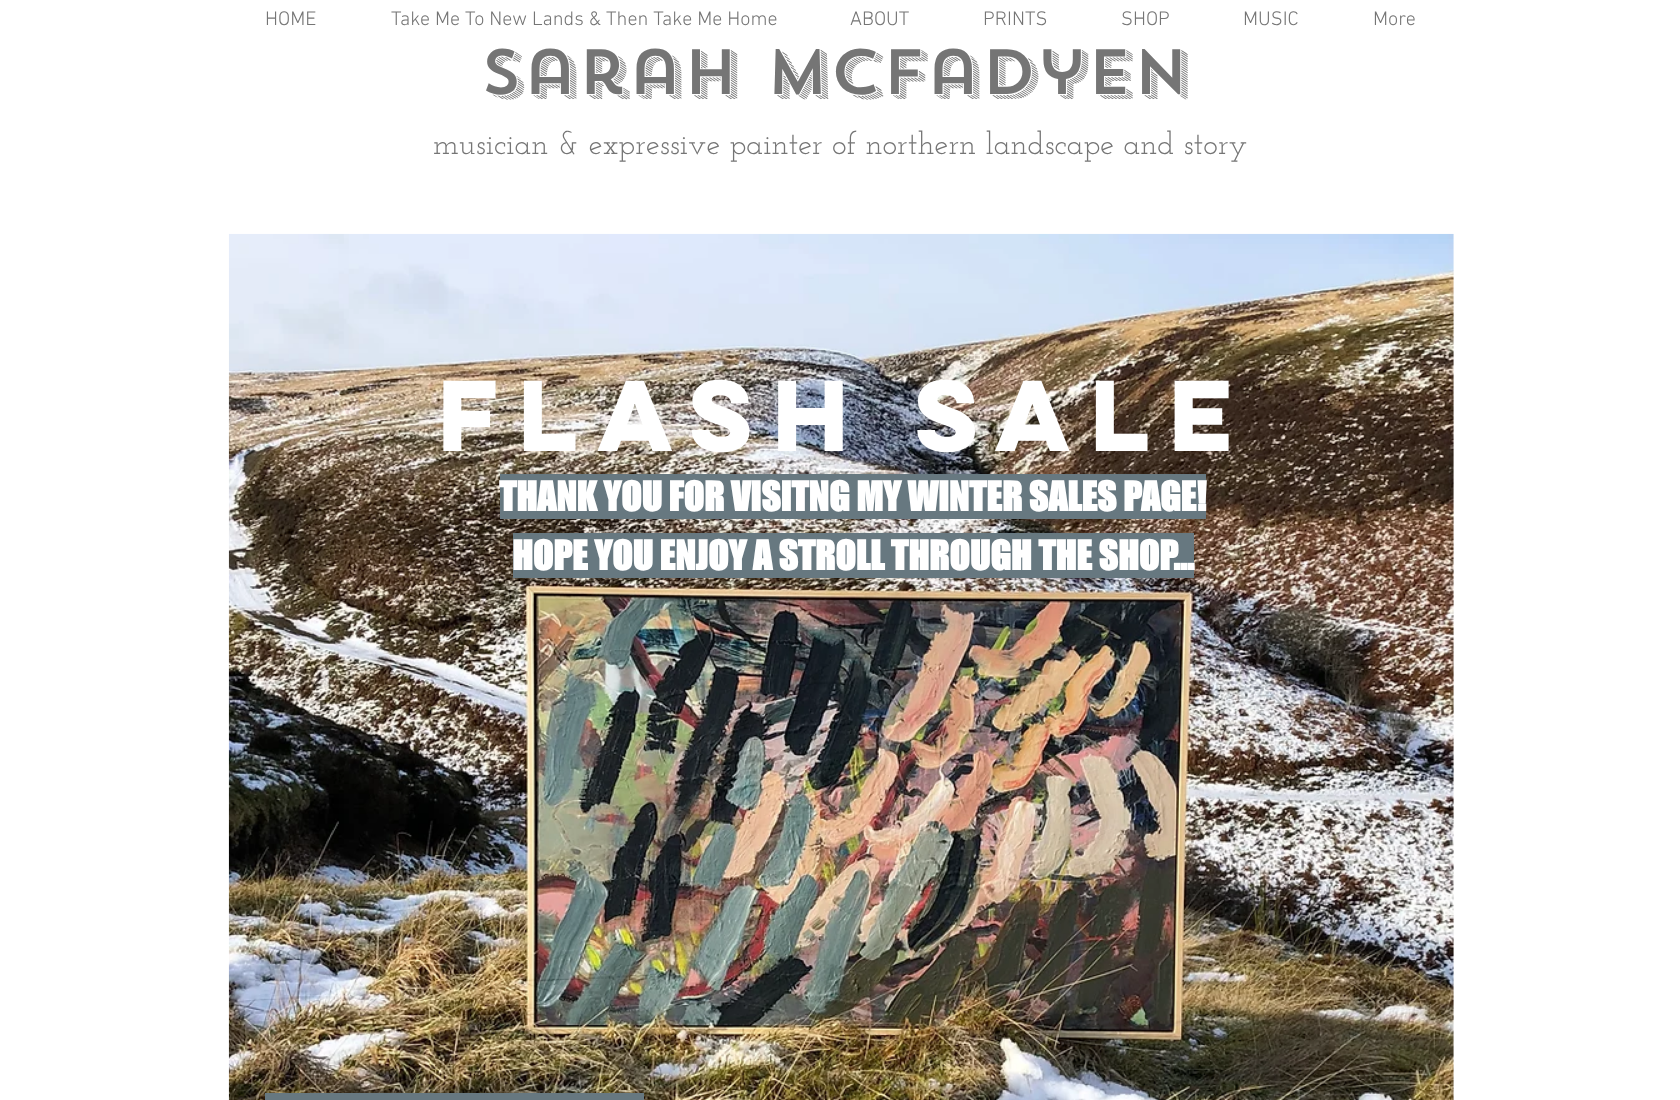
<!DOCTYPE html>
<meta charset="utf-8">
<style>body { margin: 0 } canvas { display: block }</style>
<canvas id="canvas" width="1680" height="1100"></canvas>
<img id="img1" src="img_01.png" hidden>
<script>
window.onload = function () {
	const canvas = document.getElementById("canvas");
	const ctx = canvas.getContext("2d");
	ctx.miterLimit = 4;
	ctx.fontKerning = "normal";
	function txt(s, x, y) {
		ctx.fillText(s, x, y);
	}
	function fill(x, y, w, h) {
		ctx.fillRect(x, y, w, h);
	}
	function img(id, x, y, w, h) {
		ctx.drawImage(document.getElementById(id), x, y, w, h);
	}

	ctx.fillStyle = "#FFFFFF";
	fill(0, 0, 1680, 1100);
	img("img1", 228, 233, 1226, 867);
	ctx.fillStyle = "#677880";
	fill(500, 474, 706, 45);
	fill(513, 533, 681, 45);
	fill(265, 1093, 379, 7);
	ctx.font = "300 20px 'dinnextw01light'";
	ctx.fillStyle = "#757575";
	txt("HOME", 265, 25);
	txt("Take Me To New Lands & Then Take Me Home", 391, 25);
	txt("ABOUT", 850, 25);
	txt("PRINTS", 983, 25);
	txt("SHOP", 1121, 25);
	txt("MUSIC", 1243, 25);
	txt("More", 1373, 25);
	ctx.font = "500 63.75px 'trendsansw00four'";
	txt("sarah mcfadyen", 480, 94);
	ctx.font = "31.25px Josefin Slab";
	txt("musician & expressive painter of northern landscape and story", 433, 154);
	ctx.font = "bold 90px 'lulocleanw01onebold'";
	ctx.fillStyle = "#FFFFFF";
	txt("FLASH SALE", 438, 451);
	ctx.font = "bold 37.5px 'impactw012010'";
	txt("THANK YOU FOR VISITNG MY WINTER SALES PAGE!", 499, 511);
	txt("HOPE YOU ENJOY A STROLL THROUGH THE SHOP...", 512, 570);
};
</script>
